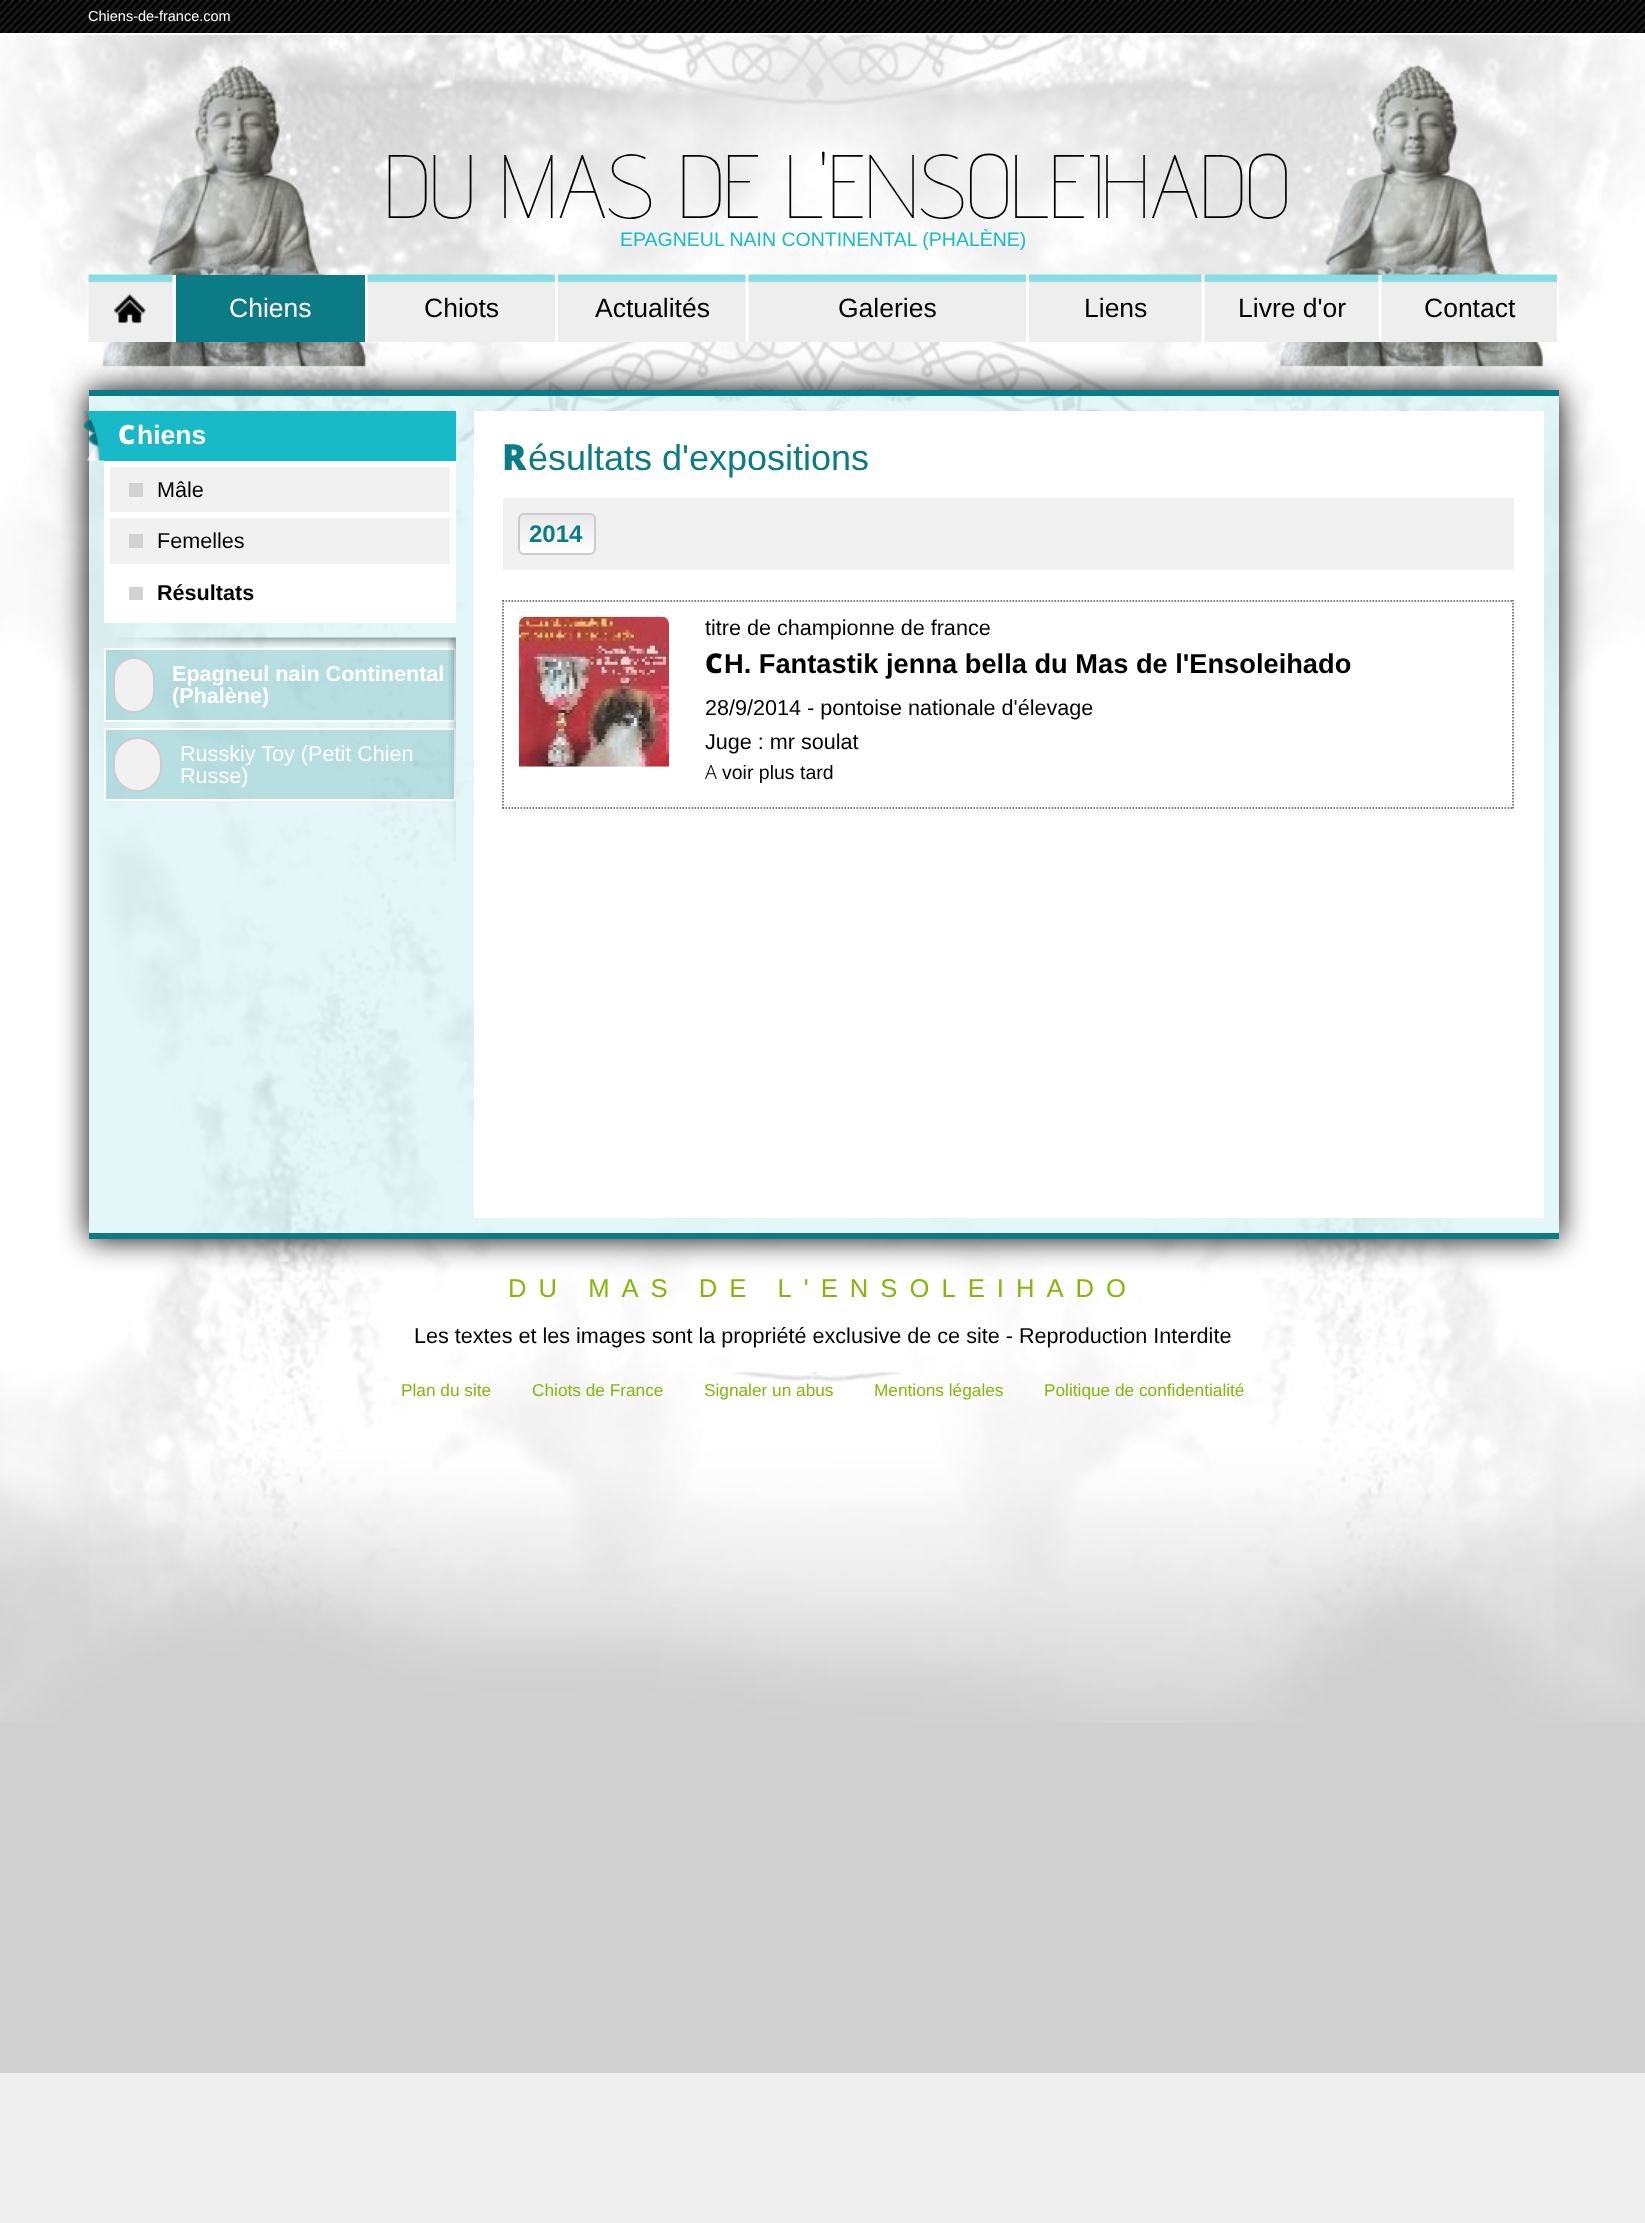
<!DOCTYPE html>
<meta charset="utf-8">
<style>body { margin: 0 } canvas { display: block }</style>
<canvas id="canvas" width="1645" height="2223"></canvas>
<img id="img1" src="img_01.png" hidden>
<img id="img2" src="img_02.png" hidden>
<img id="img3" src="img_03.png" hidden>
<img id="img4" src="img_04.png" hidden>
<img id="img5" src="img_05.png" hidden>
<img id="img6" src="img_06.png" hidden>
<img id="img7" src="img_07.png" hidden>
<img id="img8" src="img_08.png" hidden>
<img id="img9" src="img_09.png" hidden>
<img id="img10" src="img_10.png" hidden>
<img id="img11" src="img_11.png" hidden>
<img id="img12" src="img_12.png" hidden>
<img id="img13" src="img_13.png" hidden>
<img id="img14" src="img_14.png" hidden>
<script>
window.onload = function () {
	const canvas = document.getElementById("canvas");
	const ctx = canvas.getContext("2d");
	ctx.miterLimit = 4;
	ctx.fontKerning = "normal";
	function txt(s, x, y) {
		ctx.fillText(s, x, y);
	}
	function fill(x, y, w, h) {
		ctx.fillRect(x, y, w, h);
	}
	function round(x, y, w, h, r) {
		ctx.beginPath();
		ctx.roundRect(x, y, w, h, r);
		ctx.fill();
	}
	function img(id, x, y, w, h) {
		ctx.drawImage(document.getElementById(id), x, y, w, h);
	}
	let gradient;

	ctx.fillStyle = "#D0D0D0";
	fill(0, 0, 1645, 2223);
	img("img1", 0, 35, 1645, 1688);
	ctx.fillStyle = "#000000";
	fill(0, 0, 1645, 33);
	img("img2", 0, 0, 1645, 33);
	ctx.fillStyle = "#FFFFFF";
	fill(0, 33, 1645, 2);
	fill(172, 275, 1387, 67);
	img("img3", 88, 274, 85, 68);
	img("img4", 114, 294, 32, 30);
	ctx.fillStyle = "#0B7B85";
	fill(176, 275, 189, 67);
	img("img5", 367, 274, 188, 68);
	img("img6", 558, 274, 188, 68);
	img("img7", 748, 274, 278, 68);
	img("img8", 1029, 274, 173, 68);
	img("img9", 1204, 274, 175, 68);
	img("img10", 1381, 274, 176, 68);
	ctx.save();
	ctx.beginPath();
	ctx.moveTo(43, 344);
	ctx.lineTo(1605, 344);
	ctx.lineTo(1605, 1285);
	ctx.lineTo(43, 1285);
	ctx.closePath();
	ctx.moveTo(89, 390);
	ctx.lineTo(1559, 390);
	ctx.lineTo(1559, 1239);
	ctx.lineTo(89, 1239);
	ctx.closePath();
	ctx.clip("evenodd");
	ctx.fillStyle = "#000000";
	ctx.filter = "blur(15px)";
	ctx.beginPath();
	ctx.rect(89, 390, 1470, 849);
	ctx.fill();
	ctx.filter = "none";
	ctx.restore();
	ctx.fillStyle = "rgba(185, 234, 238, 0.4)";
	fill(89, 396, 1470, 837);
	ctx.fillStyle = "#0B7B85";
	fill(89, 390, 1470, 6);
	fill(89, 1233, 1470, 6);
	ctx.fillStyle = "#18BAC8";
	fill(104, 411, 352, 50);
	img("img11", 83, 411, 21, 50);
	ctx.fillStyle = "#FFFFFF";
	fill(104, 461, 352, 162);
	ctx.fillStyle = "#F1F1F1";
	fill(110, 467, 340, 45);
	ctx.fillStyle = "#D3D2D2";
	fill(129, 483, 14, 14);
	ctx.fillStyle = "#F1F1F1";
	fill(110, 518, 340, 46);
	ctx.fillStyle = "#D3D2D2";
	fill(129, 534, 14, 14);
	fill(129, 587, 14, 13);
	img("img12", 118, 637, 338, 10);
	ctx.fillStyle = "rgba(11, 123, 133, 0.2)";
	ctx.beginPath();
	ctx.rect(105, 649, 350, 72);
	ctx.fill();
	ctx.strokeStyle = "#FFFFFF";
	ctx.lineWidth = 2;
	ctx.stroke();
	ctx.beginPath();
	ctx.rect(105, 729, 350, 71);
	ctx.fill();
	ctx.stroke();
	img("img13", 448, 637, 8, 225);
	ctx.fillStyle = "#F1F1F1";
	ctx.beginPath();
	ctx.roundRect(114, 658, 40, 54, 20);
	ctx.fill();
	ctx.strokeStyle = "#CCCCCC";
	ctx.stroke();
	ctx.beginPath();
	ctx.roundRect(114, 738, 47, 53, 23.5);
	ctx.fill();
	ctx.stroke();
	ctx.fillStyle = "#FFFFFF";
	fill(474, 411, 1070, 807);
	ctx.fillStyle = "#F1F1F1";
	fill(503, 498, 1011, 72);
	ctx.save();
	ctx.beginPath();
	ctx.roundRect(518, 513, 78, 42, 6);
	ctx.clip();
	gradient = ctx.createLinearGradient(557, 515, 557, 554);
	gradient.addColorStop(0, "#E9E9E9");
	gradient.addColorStop(1, "#FFFFFF");
	ctx.fillStyle = gradient;
	fill(518, 515, 78, 39);
	ctx.restore();
	ctx.beginPath();
	ctx.roundRect(519, 514, 76, 40, 5);
	ctx.stroke();
	ctx.beginPath();
	ctx.moveTo(502.5, 601);
	ctx.lineTo(1513.5, 601);
	ctx.strokeStyle = "#555555";
	ctx.lineWidth = 1.5;
	ctx.setLineDash([1.5, 1.5]);
	ctx.stroke();
	ctx.beginPath();
	ctx.moveTo(1513, 600);
	ctx.lineTo(1513, 808.5);
	ctx.stroke();
	ctx.beginPath();
	ctx.moveTo(502.5, 808);
	ctx.lineTo(1513.5, 808);
	ctx.stroke();
	ctx.beginPath();
	ctx.moveTo(503, 600);
	ctx.lineTo(503, 808.5);
	ctx.stroke();
	fill(519, 617, 150, 150);
	img("img14", 519, 616, 150, 151);
	ctx.fillStyle = "rgba(255, 255, 255, 0.15)";
	round(692, 1371, 154, 41, 9);
	round(863, 1371, 153, 41, 9);
	ctx.fillStyle = "#EFEFEF";
	fill(0, 2073, 1645, 150);
	ctx.font = "14.5px Liberation Sans";
	ctx.fillStyle = "#FFFFFF";
	txt("Chiens-de-france.com", 88, 21);
	ctx.font = "100 90px Advent Pro";
	ctx.fillStyle = "#000000";
	txt("DU MAS DE L'ENSOLEIHADO", 385, 218);
	ctx.font = "19.5px Liberation Sans";
	ctx.fillStyle = "#18BAC8";
	txt("EPAGNEUL NAIN CONTINENTAL (PHALÈNE)", 620, 246);
	ctx.font = "26.5px Liberation Sans";
	ctx.fillStyle = "#FFFFFF";
	txt("Chiens", 229, 317);
	ctx.fillStyle = "#000000";
	txt("Chiots", 424, 317);
	txt("Actualités", 595, 317);
	txt("Galeries", 838, 317);
	txt("Liens", 1084, 317);
	txt("Livre d'or", 1238, 317);
	txt("Contact", 1424, 317);
	ctx.font = "900 26.5px Noto Sans";
	ctx.fillStyle = "#FFFFFF";
	txt("C", 118, 444);
	ctx.font = "bold 26.5px Liberation Sans";
	txt("hiens", 137, 444);
	ctx.font = "21.6px Liberation Sans";
	ctx.fillStyle = "#000000";
	txt("Mâle", 157, 497);
	txt("Femelles", 157, 548);
	ctx.font = "bold 21.6px Liberation Sans";
	txt("Résultats", 157, 600);
	ctx.fillStyle = "#FFFFFF";
	txt("Epagneul nain Continental", 172, 681);
	txt("(Phalène)", 172, 703);
	ctx.font = "21.6px Liberation Sans";
	txt("Russkiy Toy (Petit Chien", 180, 761);
	txt("Russe)", 180, 783);
	ctx.font = "900 36px Noto Sans";
	ctx.fillStyle = "#0B7B85";
	txt("R", 502, 470);
	ctx.font = "36px Liberation Sans";
	txt("ésultats d'expositions", 528, 470);
	ctx.font = "bold 24px Liberation Sans";
	txt("2014", 529, 542);
	ctx.font = "21.6px Liberation Sans";
	ctx.fillStyle = "#000000";
	txt("titre de championne de france", 705, 635);
	ctx.font = "900 27.25px Noto Sans";
	txt("C", 705, 673);
	ctx.font = "bold 27.25px Liberation Sans";
	txt("H. Fantastik jenna bella du Mas de l'Ensoleihado", 724, 673);
	ctx.font = "21.6px Liberation Sans";
	txt("28/9/2014 - pontoise nationale d'élevage", 705, 715);
	txt("Juge : mr soulat", 705, 749);
	ctx.font = "300 19.5px Noto Sans";
	txt("A", 705, 779);
	ctx.font = "19.5px Liberation Sans";
	txt("voir plus tard", 722, 779);
	ctx.letterSpacing = "12px";
	ctx.font = "25.65px Liberation Sans";
	ctx.fillStyle = "#85B70A";
	txt("DU MAS DE L'ENSOLEIHADO", 508, 1297);
	ctx.letterSpacing = "0px";
	ctx.font = "21.6px Liberation Sans";
	ctx.fillStyle = "#000000";
	txt("Les textes et les images sont la propriété exclusive de ce site - Reproduction Interdite", 414, 1343);
	ctx.font = "17.25px Liberation Sans";
	ctx.fillStyle = "#85B70A";
	txt("Plan du site", 401, 1396);
	txt("Chiots de France", 532, 1396);
	txt("Signaler un abus", 704, 1396);
	txt("Mentions légales", 874, 1396);
	txt("Politique de confidentialité", 1044, 1396);
};
</script>
